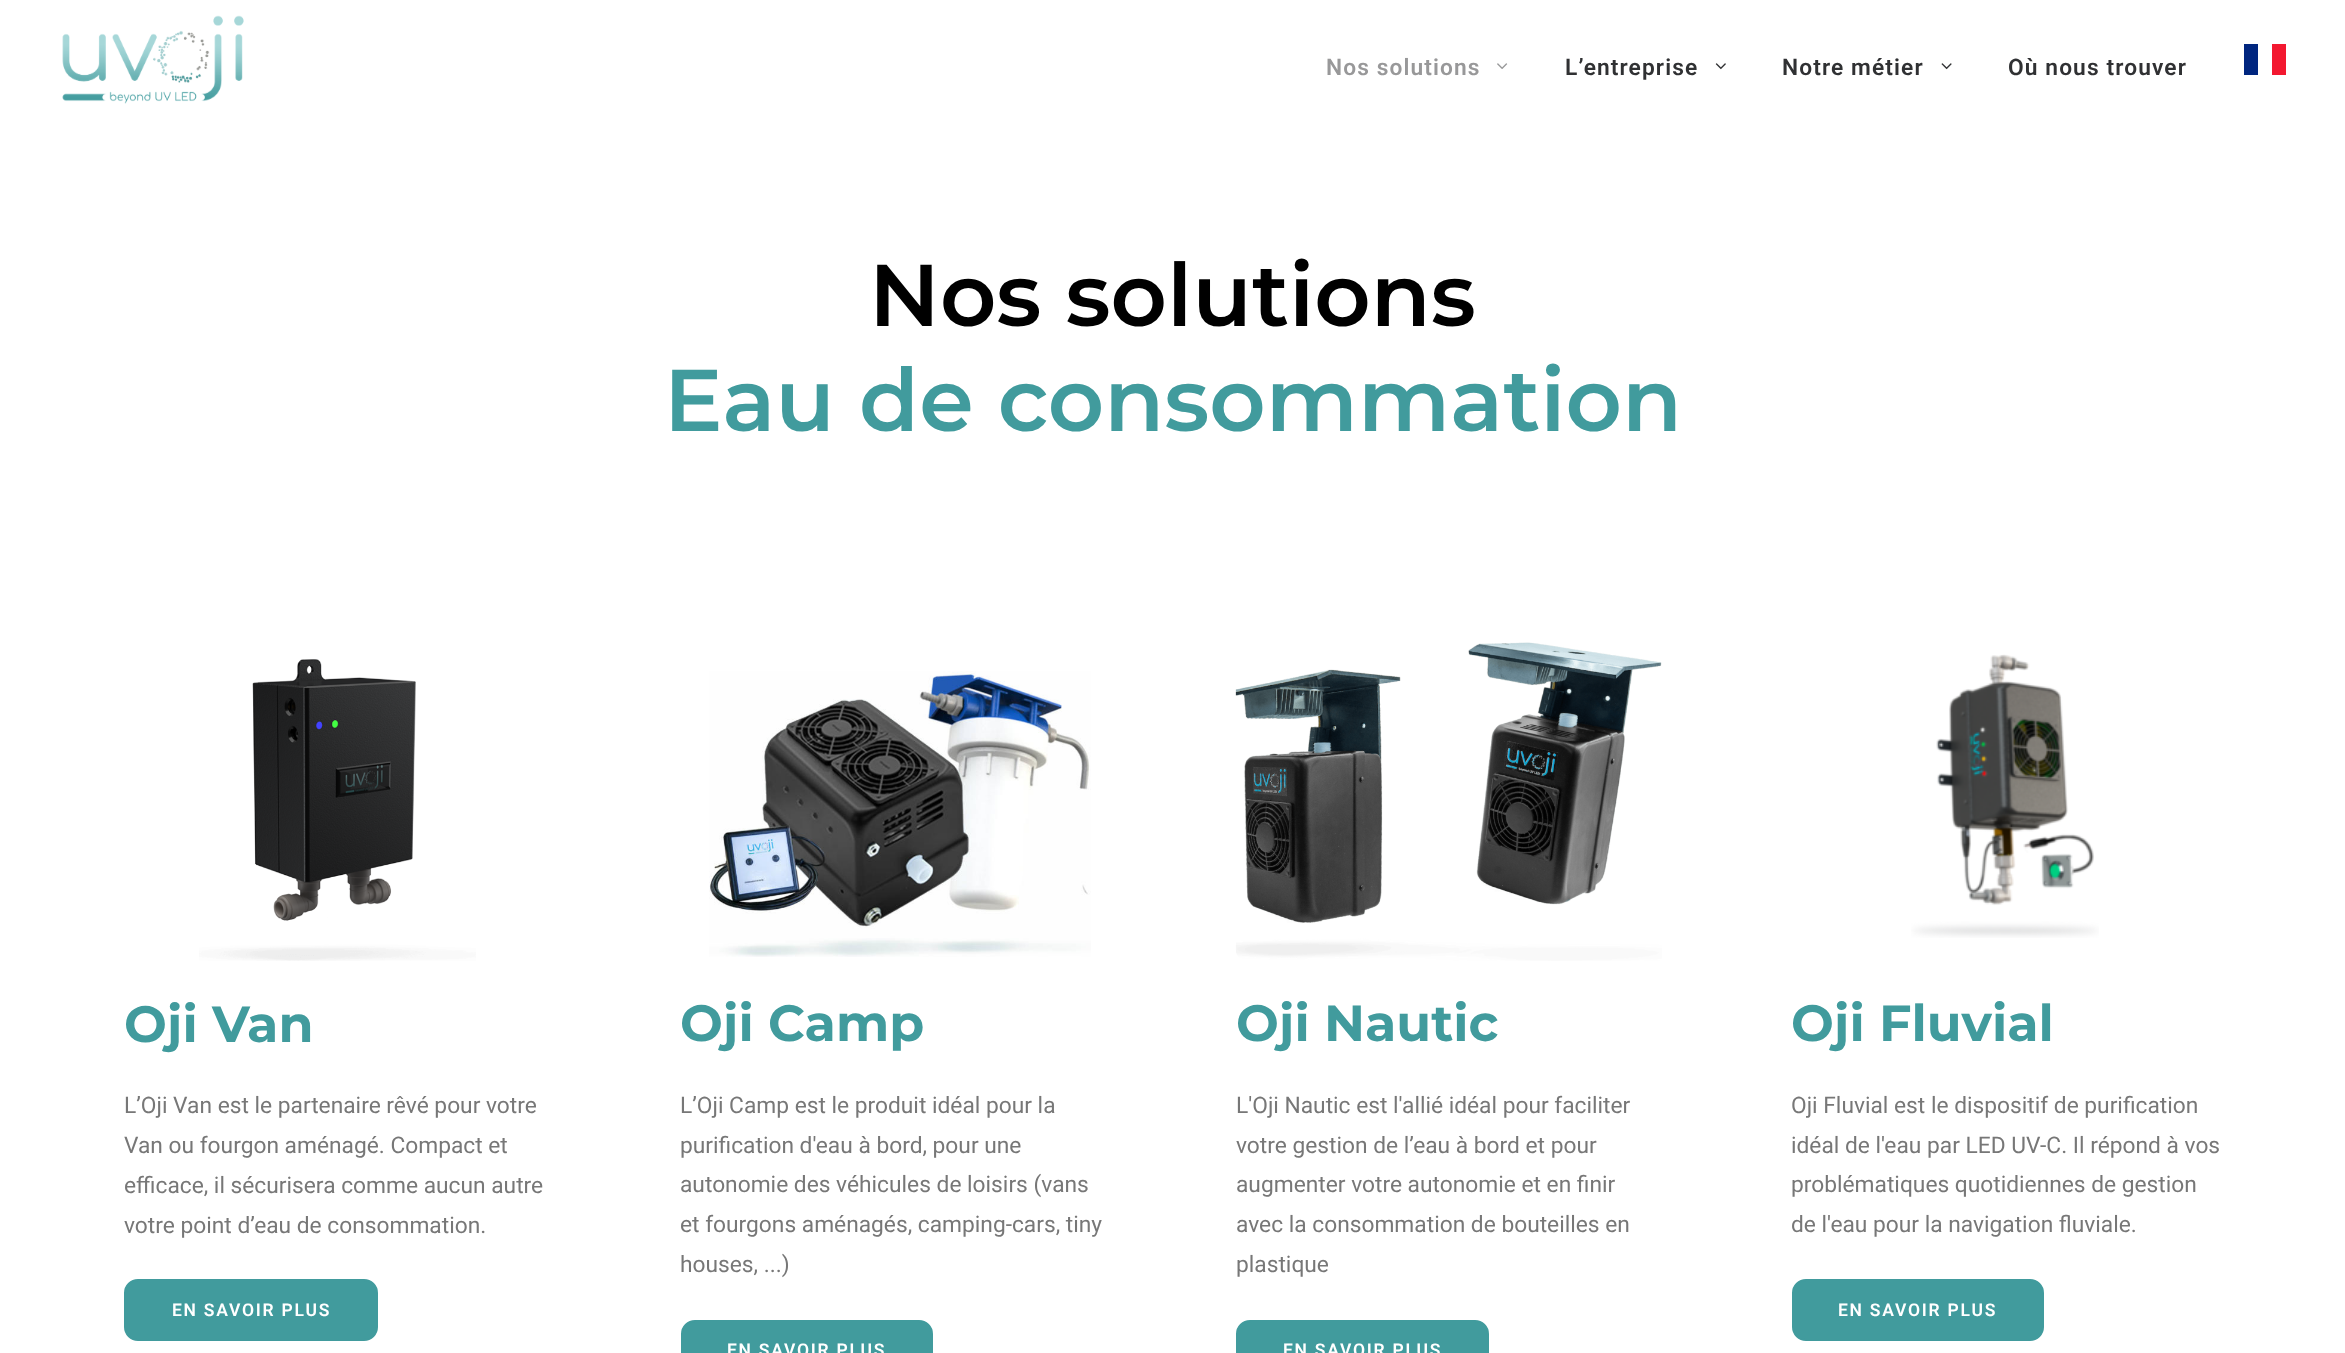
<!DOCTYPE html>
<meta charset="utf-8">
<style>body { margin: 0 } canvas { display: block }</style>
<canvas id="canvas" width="2345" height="1353"></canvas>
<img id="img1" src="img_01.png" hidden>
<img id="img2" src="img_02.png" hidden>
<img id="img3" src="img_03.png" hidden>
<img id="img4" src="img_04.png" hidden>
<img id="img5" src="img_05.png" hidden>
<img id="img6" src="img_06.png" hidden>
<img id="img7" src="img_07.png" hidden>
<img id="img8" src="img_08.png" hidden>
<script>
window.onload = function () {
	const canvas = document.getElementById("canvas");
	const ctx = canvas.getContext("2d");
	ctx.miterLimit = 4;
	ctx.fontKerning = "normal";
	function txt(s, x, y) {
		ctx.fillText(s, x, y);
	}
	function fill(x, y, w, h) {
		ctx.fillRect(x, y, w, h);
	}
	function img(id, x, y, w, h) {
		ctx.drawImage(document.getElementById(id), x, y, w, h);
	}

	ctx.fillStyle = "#FFFFFF";
	fill(0, 0, 2345, 1353);
	img("img1", 62, 15, 182, 89);
	img("img2", 1497, 63, 11, 6);
	img("img3", 1715, 63, 11, 7);
	img("img4", 1941, 63, 11, 7);
	ctx.fillStyle = "#00267F";
	fill(2244, 44, 14, 31);
	ctx.fillStyle = "#F31830";
	fill(2272, 44, 14, 31);
	img("img5", 199, 659, 277, 302);
	ctx.fillStyle = "#419B9D";
	ctx.beginPath();
	ctx.roundRect(125, 1280, 252, 60, 13);
	ctx.fill();
	ctx.strokeStyle = "#419B9D";
	ctx.lineWidth = 2;
	ctx.stroke();
	img("img6", 709, 671, 382, 286);
	ctx.beginPath();
	ctx.roundRect(682, 1321, 250, 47, 13);
	ctx.fill();
	ctx.stroke();
	img("img7", 1235, 642, 427, 319);
	ctx.beginPath();
	ctx.roundRect(1237, 1321, 251, 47, 13);
	ctx.fill();
	ctx.stroke();
	img("img8", 1911, 654, 188, 284);
	ctx.beginPath();
	ctx.roundRect(1793, 1280, 250, 60, 13);
	ctx.fill();
	ctx.stroke();
	ctx.letterSpacing = "1.1px";
	ctx.font = "600 22.75px Roboto";
	ctx.fillStyle = "#989899";
	txt("Nos solutions", 1326, 75);
	ctx.fillStyle = "#303133";
	txt("L’entreprise", 1565, 75);
	txt("Notre métier", 1782, 75);
	txt("Où nous trouver", 2008, 75);
	ctx.letterSpacing = "0px";
	ctx.font = "600 87.5px Montserrat";
	ctx.fillStyle = "#000000";
	txt("Nos solutions", 869, 326);
	ctx.fillStyle = "#419B9D";
	txt("Eau de consommation", 664, 431);
	ctx.font = "bold 50.75px Montserrat";
	txt("Oji Van", 124, 1042);
	ctx.font = "22.75px Roboto";
	ctx.fillStyle = "#777777";
	txt("L’Oji Van est le partenaire rêvé pour votre", 124, 1113);
	txt("Van ou fourgon aménagé. Compact et", 124, 1153);
	txt("efficace, il sécurisera comme aucun autre", 124, 1193);
	txt("votre point d’eau de consommation.", 124, 1233);
	ctx.letterSpacing = "1.75px";
	ctx.font = "600 17.5px Roboto";
	ctx.fillStyle = "#FFFFFF";
	txt("EN SAVOIR PLUS", 172, 1316);
	ctx.letterSpacing = "0px";
	ctx.font = "bold 50.75px Montserrat";
	ctx.fillStyle = "#419B9D";
	txt("Oji Camp", 680, 1041);
	ctx.font = "22.75px Roboto";
	ctx.fillStyle = "#777777";
	txt("L’Oji Camp est le produit idéal pour la", 680, 1113);
	txt("purification d'eau à bord, pour une", 680, 1153);
	txt("autonomie des véhicules de loisirs (vans", 680, 1192);
	txt("et fourgons aménagés, camping-cars, tiny", 680, 1232);
	txt("houses, ...)", 680, 1272);
	ctx.letterSpacing = "1.75px";
	ctx.font = "600 17.5px Roboto";
	ctx.fillStyle = "#FFFFFF";
	txt("EN SAVOIR PLUS", 727, 1356);
	ctx.letterSpacing = "0px";
	ctx.font = "bold 50.75px Montserrat";
	ctx.fillStyle = "#419B9D";
	txt("Oji Nautic", 1236, 1041);
	ctx.font = "22.75px Roboto";
	ctx.fillStyle = "#777777";
	txt("L'Oji Nautic est l'allié idéal pour faciliter", 1236, 1113);
	txt("votre gestion de l’eau à bord et pour", 1236, 1153);
	txt("augmenter votre autonomie et en finir", 1236, 1192);
	txt("avec la consommation de bouteilles en", 1236, 1232);
	txt("plastique", 1236, 1272);
	ctx.letterSpacing = "1.75px";
	ctx.font = "600 17.5px Roboto";
	ctx.fillStyle = "#FFFFFF";
	txt("EN SAVOIR PLUS", 1283, 1356);
	ctx.letterSpacing = "0px";
	ctx.font = "bold 50.75px Montserrat";
	ctx.fillStyle = "#419B9D";
	txt("Oji Fluvial", 1791, 1041);
	ctx.font = "22.75px Roboto";
	ctx.fillStyle = "#777777";
	txt("Oji Fluvial est le dispositif de purification", 1791, 1113);
	txt("idéal de l'eau par LED UV-C. Il répond à vos", 1791, 1153);
	txt("problématiques quotidiennes de gestion", 1791, 1192);
	txt("de l'eau pour la navigation fluviale.", 1791, 1232);
	ctx.letterSpacing = "1.75px";
	ctx.font = "600 17.5px Roboto";
	ctx.fillStyle = "#FFFFFF";
	txt("EN SAVOIR PLUS", 1838, 1316);
};
</script>
